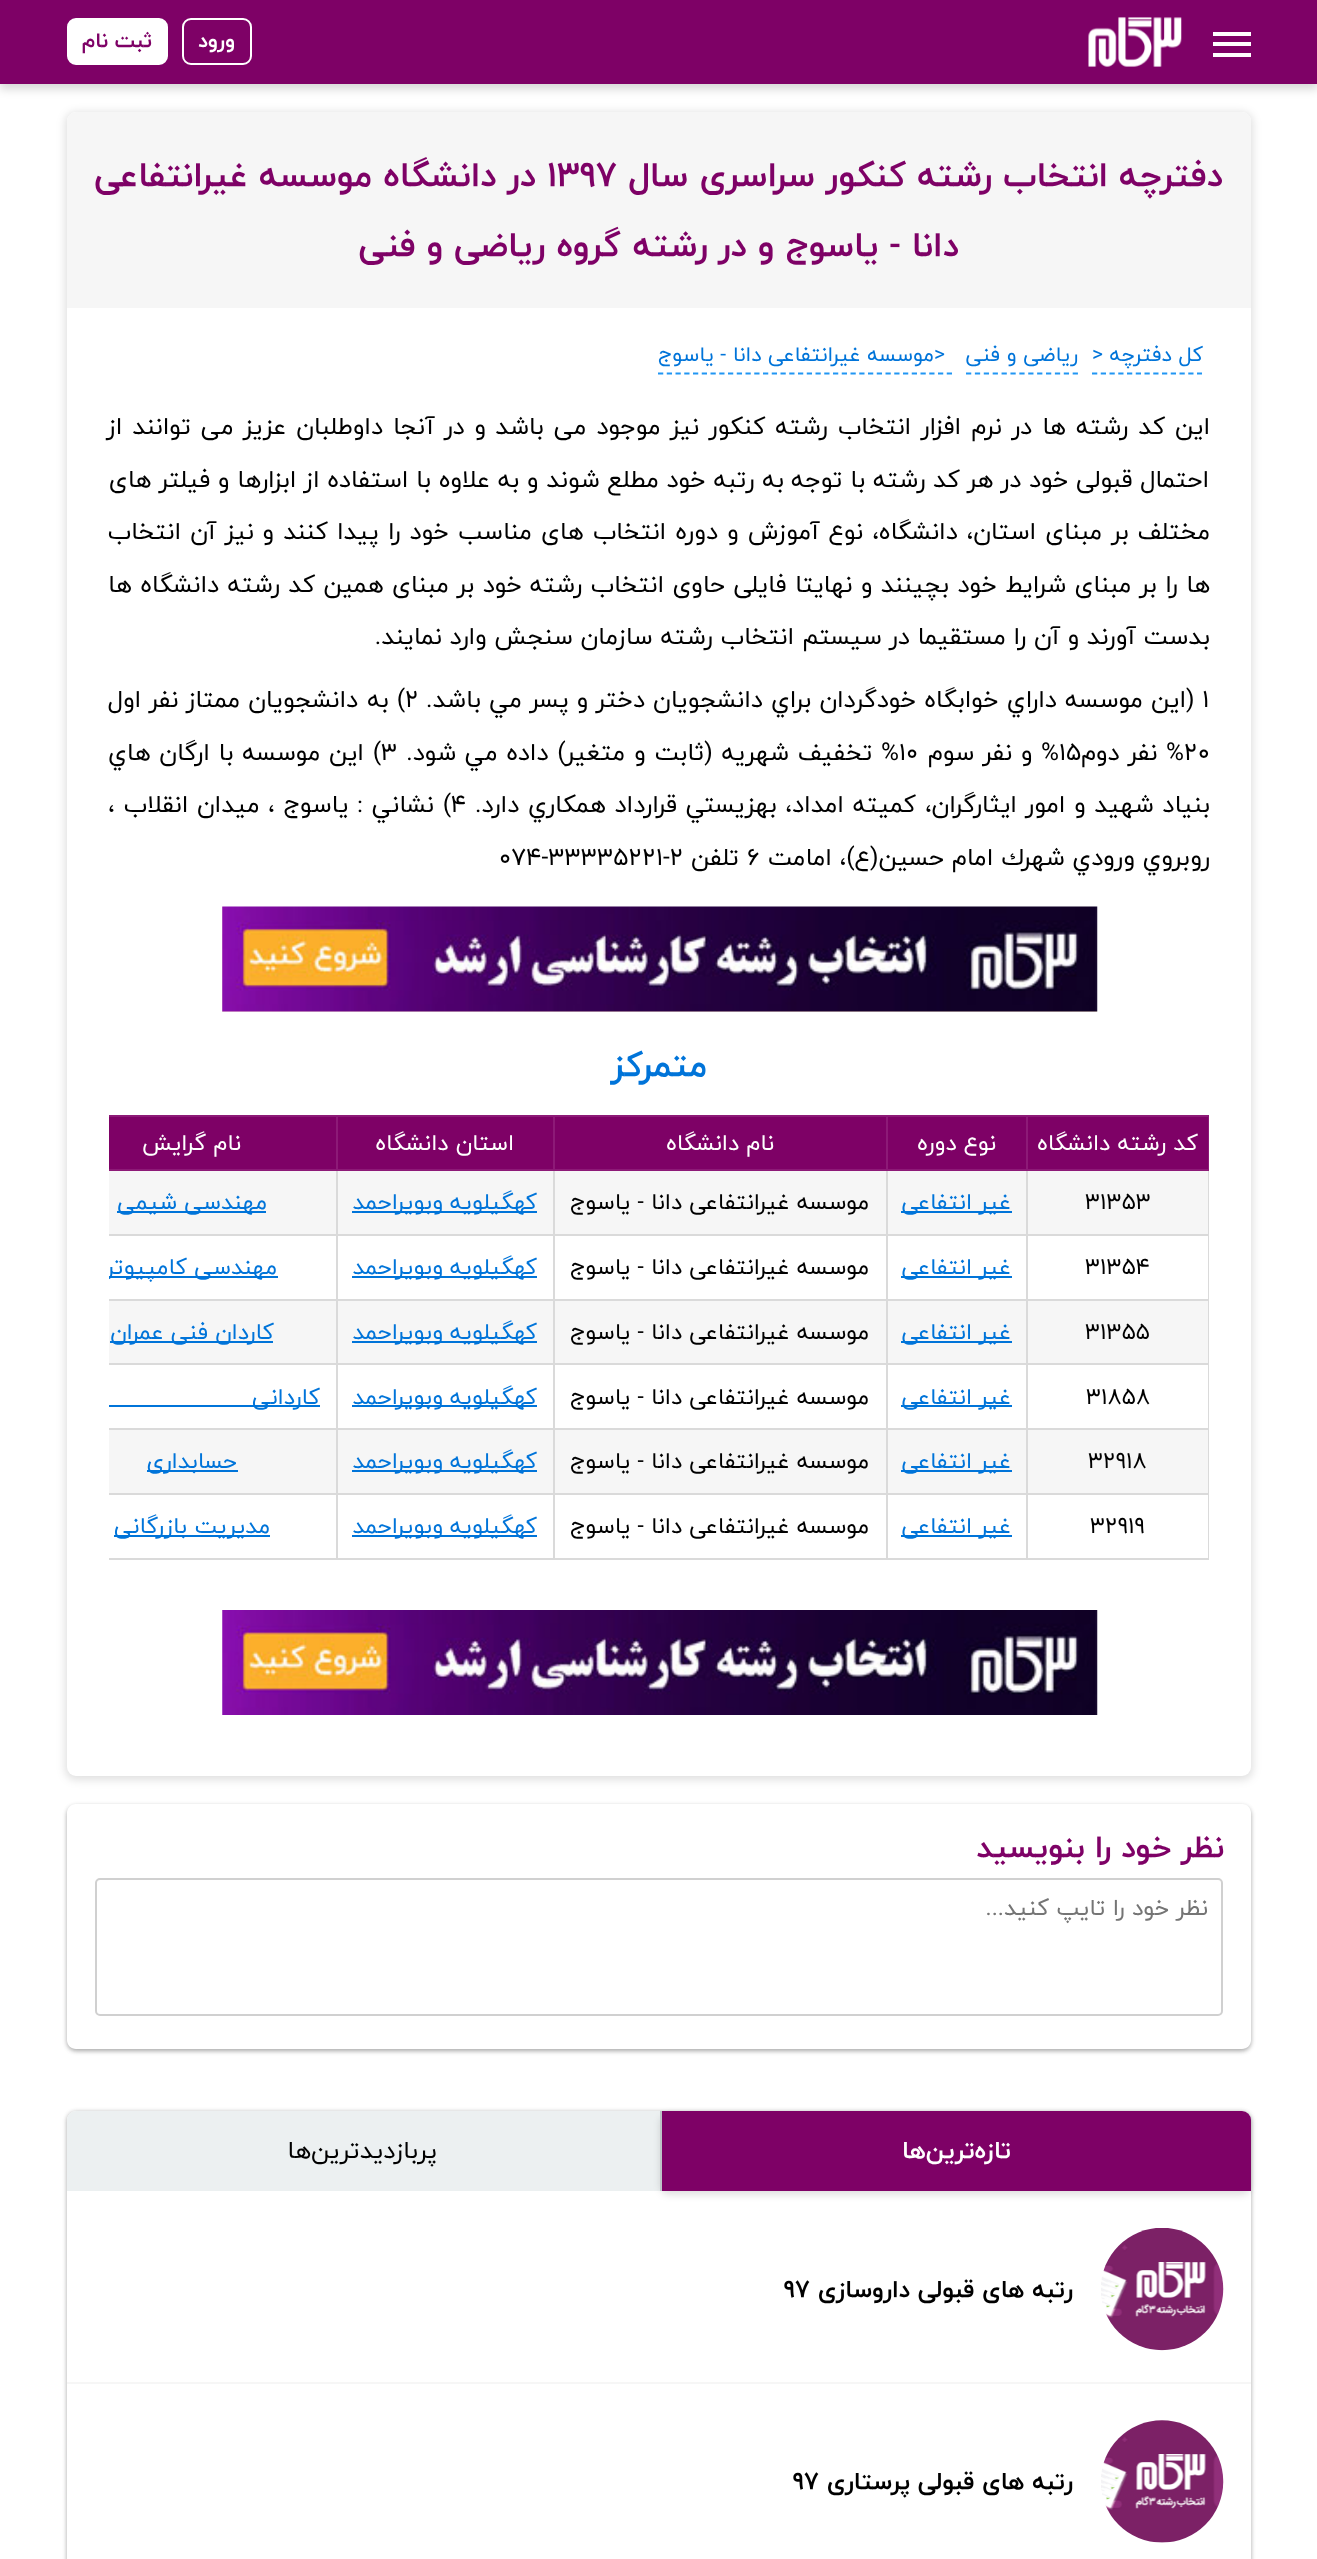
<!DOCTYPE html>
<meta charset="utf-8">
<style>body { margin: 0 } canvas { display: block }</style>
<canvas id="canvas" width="1317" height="2559"></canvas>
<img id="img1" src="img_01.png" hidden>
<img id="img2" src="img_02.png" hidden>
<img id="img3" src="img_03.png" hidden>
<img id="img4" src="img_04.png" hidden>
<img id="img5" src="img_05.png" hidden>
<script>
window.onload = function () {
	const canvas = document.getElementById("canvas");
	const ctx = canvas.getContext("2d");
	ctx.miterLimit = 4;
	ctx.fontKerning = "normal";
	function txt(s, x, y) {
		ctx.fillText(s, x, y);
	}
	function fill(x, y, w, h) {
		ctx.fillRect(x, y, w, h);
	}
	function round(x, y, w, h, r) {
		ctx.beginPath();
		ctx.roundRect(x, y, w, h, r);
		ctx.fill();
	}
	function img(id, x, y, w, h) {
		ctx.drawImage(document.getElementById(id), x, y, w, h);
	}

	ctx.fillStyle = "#FFFFFF";
	fill(0, 0, 1317, 2559);
	ctx.fillStyle = "rgba(0, 0, 0, 0.16)";
	ctx.filter = "blur(5px)";
	ctx.beginPath();
	ctx.rect(0, 5, 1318, 84);
	ctx.fill();
	ctx.filter = "none";
	ctx.fillStyle = "#7E0166";
	fill(0, 0, 1317, 84);
	ctx.fillStyle = "#FFFFFF";
	fill(1213, 32, 38, 4);
	fill(1213, 42, 38, 4);
	fill(1213, 53, 38, 4);
	img("img1", 1088, 17, 94, 50);
	ctx.beginPath();
	ctx.roundRect(183, 19, 68, 45, 8);
	ctx.strokeStyle = "#FFFFFF";
	ctx.lineWidth = 2;
	ctx.stroke();
	ctx.beginPath();
	ctx.roundRect(68, 19, 99, 45, 8);
	ctx.fill();
	ctx.stroke();
	ctx.fillStyle = "rgba(0, 0, 0, 0.12)";
	ctx.filter = "blur(4.5px)";
	ctx.beginPath();
	ctx.roundRect(65, 112, 1188, 1668, 11);
	ctx.fill();
	ctx.filter = "none";
	ctx.fillStyle = "#FFFFFF";
	round(67, 112, 1184, 1664, 9);
	ctx.fillStyle = "#F6F6F6";
	ctx.beginPath();
	ctx.roundRect(67, 112, 1184, 196, [9, 9, 0, 0]);
	ctx.fill();
	ctx.beginPath();
	ctx.moveTo(1092, 373.5);
	ctx.lineTo(1202, 373.5);
	ctx.strokeStyle = "#2196F3";
	ctx.lineWidth = 1.8;
	ctx.setLineDash([5.25, 3.5]);
	ctx.stroke();
	ctx.beginPath();
	ctx.moveTo(966, 373.5);
	ctx.lineTo(1078, 373.5);
	ctx.setLineDash([5.25, 3.64]);
	ctx.stroke();
	ctx.beginPath();
	ctx.moveTo(658, 373.5);
	ctx.lineTo(952, 373.5);
	ctx.setLineDash([5.25, 3.5]);
	ctx.stroke();
	ctx.fillStyle = "#FAEBD7";
	fill(222, 907, 875, 105);
	img("img2", 222, 906, 876, 106);
	ctx.fillStyle = "#DADADA";
	fill(1208, 1171, 1, 388);
	fill(109, 1558, 1100, 2);
	ctx.fillStyle = "#7E0166";
	fill(109, 1117, 1099, 52);
	ctx.fillStyle = "#8D1A77";
	fill(109, 1115, 229, 2);
	ctx.fillStyle = "#F6F6F6";
	fill(109, 1171, 1099, 63);
	ctx.fillStyle = "#DADADA";
	fill(109, 1234, 229, 2);
	fill(109, 1299, 229, 2);
	ctx.fillStyle = "#F6F6F6";
	fill(109, 1301, 1099, 62);
	ctx.fillStyle = "#DADADA";
	fill(109, 1363, 229, 2);
	fill(109, 1428, 229, 2);
	ctx.fillStyle = "#F6F6F6";
	fill(109, 1430, 1099, 63);
	ctx.fillStyle = "#DADADA";
	fill(109, 1493, 229, 2);
	fill(336, 1493, 2, 66);
	fill(336, 1493, 219, 2);
	fill(336, 1428, 2, 67);
	fill(336, 1428, 219, 2);
	fill(336, 1363, 2, 67);
	fill(336, 1363, 219, 2);
	fill(336, 1299, 2, 66);
	fill(336, 1299, 219, 2);
	fill(336, 1234, 2, 66);
	fill(336, 1234, 219, 2);
	fill(336, 1169, 2, 67);
	ctx.fillStyle = "#8D1A77";
	fill(336, 1115, 2, 56);
	fill(336, 1115, 219, 2);
	ctx.fillStyle = "#DADADA";
	fill(553, 1493, 2, 66);
	fill(553, 1493, 334, 2);
	fill(553, 1428, 2, 67);
	fill(553, 1428, 334, 2);
	fill(553, 1363, 2, 67);
	fill(553, 1363, 334, 2);
	fill(553, 1299, 2, 66);
	fill(553, 1299, 334, 2);
	fill(553, 1234, 2, 66);
	fill(553, 1234, 334, 2);
	fill(553, 1169, 2, 67);
	ctx.fillStyle = "#8D1A77";
	fill(553, 1115, 2, 56);
	fill(553, 1115, 334, 2);
	ctx.fillStyle = "#DADADA";
	fill(886, 1493, 2, 66);
	fill(886, 1493, 141, 2);
	fill(886, 1428, 2, 67);
	fill(886, 1428, 141, 2);
	fill(886, 1363, 2, 67);
	fill(886, 1363, 141, 2);
	fill(886, 1299, 2, 66);
	fill(886, 1299, 141, 2);
	fill(886, 1234, 2, 66);
	fill(886, 1234, 141, 2);
	fill(886, 1169, 2, 67);
	ctx.fillStyle = "#8D1A77";
	fill(886, 1115, 2, 56);
	fill(886, 1115, 141, 2);
	ctx.fillStyle = "#DADADA";
	fill(1026, 1493, 2, 66);
	fill(1026, 1493, 183, 2);
	fill(1026, 1428, 2, 67);
	fill(1026, 1428, 183, 2);
	fill(1026, 1363, 2, 67);
	fill(1026, 1363, 183, 2);
	fill(1026, 1299, 2, 66);
	fill(1026, 1299, 183, 2);
	fill(1026, 1234, 2, 66);
	fill(1026, 1234, 183, 2);
	fill(1026, 1169, 2, 67);
	ctx.fillStyle = "#8D1A77";
	fill(1026, 1115, 2, 56);
	fill(1026, 1115, 183, 2);
	fill(1208, 1115, 1, 56);
	fill(109, 1169, 229, 2);
	fill(336, 1169, 219, 2);
	fill(553, 1169, 334, 2);
	fill(886, 1169, 141, 2);
	fill(1026, 1169, 183, 2);
	ctx.fillStyle = "#0074D9";
	fill(901, 1211, 111, 2);
	fill(352, 1211, 185, 2);
	fill(117, 1211, 149, 2);
	fill(901, 1276, 111, 2);
	fill(352, 1276, 185, 2);
	fill(109, 1276, 169, 2);
	fill(901, 1341, 111, 2);
	fill(352, 1341, 185, 2);
	fill(110, 1341, 163, 2);
	fill(901, 1405, 111, 2);
	fill(352, 1405, 185, 2);
	fill(109, 1405, 211, 2);
	fill(901, 1470, 111, 2);
	fill(352, 1470, 185, 2);
	fill(147, 1470, 91, 2);
	fill(901, 1535, 111, 2);
	fill(352, 1535, 185, 2);
	fill(114, 1535, 156, 2);
	img("img3", 222, 1610, 876, 105);
	ctx.save();
	ctx.beginPath();
	ctx.moveTo(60, 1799);
	ctx.lineTo(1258, 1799);
	ctx.lineTo(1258, 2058);
	ctx.lineTo(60, 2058);
	ctx.closePath();
	ctx.moveTo(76, 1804);
	ctx.lineTo(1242, 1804);
	ctx.bezierCurveTo(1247, 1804, 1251, 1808, 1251, 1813);
	ctx.lineTo(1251, 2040);
	ctx.bezierCurveTo(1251, 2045, 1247, 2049, 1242, 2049);
	ctx.lineTo(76, 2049);
	ctx.bezierCurveTo(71, 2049, 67, 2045, 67, 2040);
	ctx.lineTo(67, 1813);
	ctx.bezierCurveTo(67, 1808, 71, 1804, 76, 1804);
	ctx.closePath();
	ctx.clip("evenodd");
	ctx.fillStyle = "rgba(0, 0, 0, 0.24)";
	ctx.filter = "blur(2px)";
	ctx.beginPath();
	ctx.roundRect(67, 1806, 1184, 245, 9);
	ctx.fill();
	ctx.filter = "none";
	ctx.restore();
	ctx.save();
	ctx.beginPath();
	ctx.moveTo(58, 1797);
	ctx.lineTo(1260, 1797);
	ctx.lineTo(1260, 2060);
	ctx.lineTo(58, 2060);
	ctx.closePath();
	ctx.moveTo(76, 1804);
	ctx.lineTo(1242, 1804);
	ctx.bezierCurveTo(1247, 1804, 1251, 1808, 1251, 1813);
	ctx.lineTo(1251, 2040);
	ctx.bezierCurveTo(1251, 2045, 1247, 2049, 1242, 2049);
	ctx.lineTo(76, 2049);
	ctx.bezierCurveTo(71, 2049, 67, 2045, 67, 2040);
	ctx.lineTo(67, 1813);
	ctx.bezierCurveTo(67, 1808, 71, 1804, 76, 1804);
	ctx.closePath();
	ctx.clip("evenodd");
	ctx.fillStyle = "rgba(0, 0, 0, 0.12)";
	ctx.filter = "blur(2.5px)";
	ctx.beginPath();
	ctx.roundRect(67, 1806, 1184, 245, 9);
	ctx.fill();
	ctx.filter = "none";
	ctx.restore();
	ctx.beginPath();
	ctx.roundRect(96, 1879, 1126, 136, 4);
	ctx.strokeStyle = "#D0D0D0";
	ctx.lineWidth = 2;
	ctx.setLineDash([]);
	ctx.stroke();
	ctx.fillStyle = "rgba(0, 0, 0, 0.24)";
	ctx.filter = "blur(2px)";
	ctx.beginPath();
	ctx.roundRect(67, 2112, 1184, 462, 9);
	ctx.fill();
	ctx.filter = "none";
	ctx.fillStyle = "rgba(0, 0, 0, 0.12)";
	ctx.filter = "blur(2.5px)";
	ctx.beginPath();
	ctx.roundRect(67, 2112, 1184, 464, 9);
	ctx.fill();
	ctx.filter = "none";
	ctx.fillStyle = "#FFFFFF";
	round(67, 2111, 1184, 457, 9);
	ctx.fillStyle = "#ECF0F1";
	ctx.beginPath();
	ctx.roundRect(67, 2111, 1184, 80, [9, 9, 0, 0]);
	ctx.fill();
	ctx.fillStyle = "rgba(0, 0, 0, 0.12)";
	ctx.filter = "blur(3.5px)";
	ctx.beginPath();
	ctx.roundRect(660, 2114, 591, 81, 9);
	ctx.fill();
	ctx.filter = "none";
	ctx.fillStyle = "#7E0166";
	ctx.beginPath();
	ctx.roundRect(660, 2111, 591, 80, [0, 9, 0, 0]);
	ctx.fill();
	ctx.fillStyle = "#BDC3C7";
	fill(660, 2111, 2, 80);
	ctx.fillStyle = "#F6F6F6";
	fill(67, 2382, 1184, 2);
	img("img4", 1101, 2228, 123, 123);
	img("img5", 1101, 2420, 123, 123);
	ctx.direction = "rtl";
	ctx.font = "bold 21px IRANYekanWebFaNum";
	ctx.fillStyle = "#FFFFFF";
	txt("ورود", 235, 47);
	ctx.fillStyle = "#7E0166";
	txt("ثبت نام", 152, 47);
	ctx.font = "bold 35px IRANYekanWebFaNum";
	txt("دفترچه انتخاب", 1223, 186);
	txt("رشته کنکور سراسری سال", 992, 186);
	ctx.direction = "ltr";
	txt("1397", 547, 186);
	ctx.direction = "rtl";
	txt("در دانشگاه موسسه غیرانتفاعی", 536, 186);
	txt("دانا - یاسوج و در رشته", 959, 256);
	txt("گروه ریاضی و فنی", 621, 256);
	ctx.font = "21px IRANYekanWebFaNum";
	ctx.fillStyle = "#0074D9";
	txt("کل دفترچه", 1203, 361);
	ctx.direction = "ltr";
	txt(">", 1092, 361);
	ctx.direction = "rtl";
	txt("ریاضی و", 1078, 361);
	txt("فنی", 1000, 361);
	ctx.direction = "ltr";
	txt(">", 934, 361);
	ctx.direction = "rtl";
	txt("موسسه غیرانتفاعی دانا - یاسوج", 934, 361);
	ctx.wordSpacing = "2.25px";
	ctx.font = "24.5px IRANYekanWebFaNum";
	ctx.fillStyle = "#000000";
	txt("این کد رشته ها در نرم افزار انتخاب رشته کنکور نیز موجود می باشد", 1210, 434);
	txt("و در آنجا داوطلبان عزیز می توانند از", 486, 434);
	ctx.wordSpacing = "0px";
	txt("احتمال قبولی خود در هر کد رشته با توجه", 1209, 487);
	txt("به رتبه خود مطلع شوند و به علاوه با استفاده از ابزارها و فیلتر های", 784, 487);
	ctx.wordSpacing = "1px";
	txt("مختلف بر", 1210, 539);
	ctx.wordSpacing = "1.4px";
	txt("مبنای استان، دانشگاه، نوع آموزش و دوره انتخاب های مناسب خود را پیدا کنند و", 1102, 539);
	txt("نیز آن انتخاب", 254, 539);
	ctx.wordSpacing = "0.7px";
	txt("ها را بر مبنای شرایط خود بچینند و نهایتا فایلی حاوی انتخاب رشته", 1210, 592);
	txt("خود بر مبنای همین کد رشته دانشگاه ها", 522, 592);
	ctx.wordSpacing = "0px";
	txt("بدست آورند و آن را مستقیما در سیستم", 1210, 644);
	txt("انتخاب رشته سازمان سنجش وارد نمایند.", 794, 644);
	ctx.direction = "ltr";
	txt(") 1", 1186, 707);
	ctx.wordSpacing = "0.4px";
	ctx.direction = "rtl";
	txt("اين موسسه داراي خوابگاه خودگردان براي دانشجويان دختر و پسر مي باشد.", 1186, 707);
	ctx.wordSpacing = "0px";
	ctx.direction = "ltr";
	txt("2", 405, 707);
	ctx.direction = "rtl";
	txt(") به", 405, 707);
	ctx.wordSpacing = "0.4px";
	txt("دانشجويان ممتاز نفر اول", 358, 707);
	ctx.wordSpacing = "0px";
	ctx.direction = "ltr";
	txt("20", 1184, 760);
	ctx.wordSpacing = "1px";
	ctx.direction = "rtl";
	txt("% نفر دوم", 1184, 760);
	ctx.wordSpacing = "0px";
	ctx.direction = "ltr";
	txt("15", 1059, 760);
	ctx.wordSpacing = "1px";
	ctx.direction = "rtl";
	txt("% و نفر سوم", 1059, 760);
	ctx.wordSpacing = "0px";
	ctx.direction = "ltr";
	txt("10", 899, 760);
	ctx.wordSpacing = "1px";
	ctx.direction = "rtl";
	txt("% تخفيف شهريه (ثابت و", 899, 760);
	txt("متغير) داده مي شود.", 625, 760);
	ctx.wordSpacing = "0px";
	ctx.direction = "ltr";
	txt("3", 381, 760);
	ctx.wordSpacing = "1px";
	ctx.direction = "rtl";
	txt(") اين موسسه با ارگان هاي", 381, 760);
	txt("بنياد شهيد و امور ايثارگران،", 1210, 812);
	txt("كميته امداد، بهزيستي قرارداد همكاري دارد.", 916, 812);
	ctx.wordSpacing = "0px";
	ctx.direction = "ltr";
	txt("4", 451, 812);
	ctx.wordSpacing = "1px";
	ctx.direction = "rtl";
	txt(") نشاني : ياسوج ، ميدان انقلاب ،", 451, 812);
	ctx.wordSpacing = "0px";
	txt("روبروي ورودي شهرك امام حسين(ع)، امامت", 1210, 865);
	ctx.direction = "ltr";
	txt("6", 747, 865);
	ctx.direction = "rtl";
	txt("تلفن", 739, 865);
	ctx.direction = "ltr";
	txt("074-33335221-2", 499, 865);
	ctx.direction = "rtl";
	ctx.font = "bold 35px IRANYekanWebFaNum";
	ctx.fillStyle = "#0074D9";
	txt("متمرکز", 707, 1076);
	ctx.font = "22.75px IRANYekanWebFaNum";
	ctx.fillStyle = "#FFFFFF";
	txt("کد", 1198, 1150);
	txt("رشته دانشگاه", 1166, 1150);
	txt("نوع دوره", 996, 1150);
	txt("نام دانشگاه", 774, 1150);
	txt("استان دانشگاه", 514, 1150);
	txt("نام گرایش", 241, 1150);
	ctx.direction = "ltr";
	ctx.fillStyle = "#000000";
	txt("31353", 1085, 1209);
	ctx.direction = "rtl";
	ctx.fillStyle = "#0074D9";
	txt("غیر", 1011, 1209);
	txt("انتفاعی", 972, 1209);
	ctx.fillStyle = "#000000";
	txt("موسسه غیرانتفاعی دانا - یاسوج", 869, 1209);
	ctx.fillStyle = "#0074D9";
	txt("کهگیلویه", 537, 1209);
	txt("وبویراحمد", 443, 1209);
	txt("مهندسی", 267, 1209);
	txt("شیمی", 177, 1209);
	ctx.direction = "ltr";
	ctx.fillStyle = "#000000";
	txt("31354", 1085, 1274);
	ctx.direction = "rtl";
	ctx.fillStyle = "#0074D9";
	txt("غیر", 1011, 1274);
	txt("انتفاعی", 972, 1274);
	ctx.fillStyle = "#000000";
	txt("موسسه غیرانتفاعی دانا - یاسوج", 869, 1274);
	ctx.fillStyle = "#0074D9";
	txt("کهگیلویه", 537, 1274);
	txt("وبویراحمد", 443, 1274);
	txt("مهندسی", 277, 1274);
	ctx.save();
	ctx.beginPath();
	ctx.rect(109, 1087, 1100, 500);
	ctx.clip();
	txt("کامپیوتر", 187, 1274);
	ctx.restore();
	ctx.direction = "ltr";
	ctx.fillStyle = "#000000";
	txt("31355", 1085, 1339);
	ctx.direction = "rtl";
	ctx.fillStyle = "#0074D9";
	txt("غیر", 1011, 1339);
	txt("انتفاعی", 972, 1339);
	ctx.fillStyle = "#000000";
	txt("موسسه غیرانتفاعی دانا - یاسوج", 869, 1339);
	ctx.fillStyle = "#0074D9";
	txt("کهگیلویه", 537, 1339);
	txt("وبویراحمد", 443, 1339);
	txt("کاردان", 274, 1339);
	txt("فنی عمران", 208, 1339);
	ctx.direction = "ltr";
	ctx.fillStyle = "#000000";
	txt("31858", 1086, 1404);
	ctx.direction = "rtl";
	ctx.fillStyle = "#0074D9";
	txt("غیر", 1011, 1404);
	txt("انتفاعی", 972, 1404);
	ctx.fillStyle = "#000000";
	txt("موسسه غیرانتفاعی دانا - یاسوج", 869, 1404);
	ctx.fillStyle = "#0074D9";
	txt("کهگیلویه", 537, 1404);
	txt("وبویراحمد", 443, 1404);
	txt("کاردانی", 320, 1404);
	ctx.direction = "ltr";
	ctx.fillStyle = "#000000";
	txt("32918", 1088, 1468);
	ctx.direction = "rtl";
	ctx.fillStyle = "#0074D9";
	txt("غیر", 1011, 1468);
	txt("انتفاعی", 972, 1468);
	ctx.fillStyle = "#000000";
	txt("موسسه غیرانتفاعی دانا - یاسوج", 869, 1468);
	ctx.fillStyle = "#0074D9";
	txt("کهگیلویه", 537, 1468);
	txt("وبویراحمد", 443, 1468);
	txt("حسابداری", 237, 1468);
	ctx.direction = "ltr";
	ctx.fillStyle = "#000000";
	txt("32919", 1090, 1533);
	ctx.direction = "rtl";
	ctx.fillStyle = "#0074D9";
	txt("غیر", 1011, 1533);
	txt("انتفاعی", 972, 1533);
	ctx.fillStyle = "#000000";
	txt("موسسه غیرانتفاعی دانا - یاسوج", 869, 1533);
	ctx.fillStyle = "#0074D9";
	txt("کهگیلویه", 537, 1533);
	txt("وبویراحمد", 443, 1533);
	txt("مدیریت", 270, 1533);
	txt("بازرگانی", 187, 1533);
	ctx.font = "bold 31.5px IRANYekanWebFaNum";
	ctx.fillStyle = "#7E0166";
	txt("نظر خود را بنویسید", 1224, 1857);
	ctx.font = "23.25px IRANYekanWebFaNum";
	ctx.fillStyle = "#757575";
	txt("نظر خود را تایپ کنید...", 1208, 1915);
	ctx.font = "bold 24.5px IRANYekanWebFaNum";
	ctx.fillStyle = "#FFFFFF";
	txt("تازه‌ترین‌ها", 1011, 2158);
	ctx.font = "24.5px IRANYekanWebFaNum";
	ctx.fillStyle = "#000000";
	txt("پر‌بازدیدترین‌ها", 437, 2158);
	ctx.font = "bold 24.5px IRANYekanWebFaNum";
	txt("رتبه های قبولی داروسازی", 1073, 2297);
	ctx.direction = "ltr";
	txt("97", 784, 2297);
	ctx.direction = "rtl";
	txt("رتبه های قبولی پرستاری", 1073, 2489);
	ctx.direction = "ltr";
	txt("97", 793, 2489);
};
</script>
